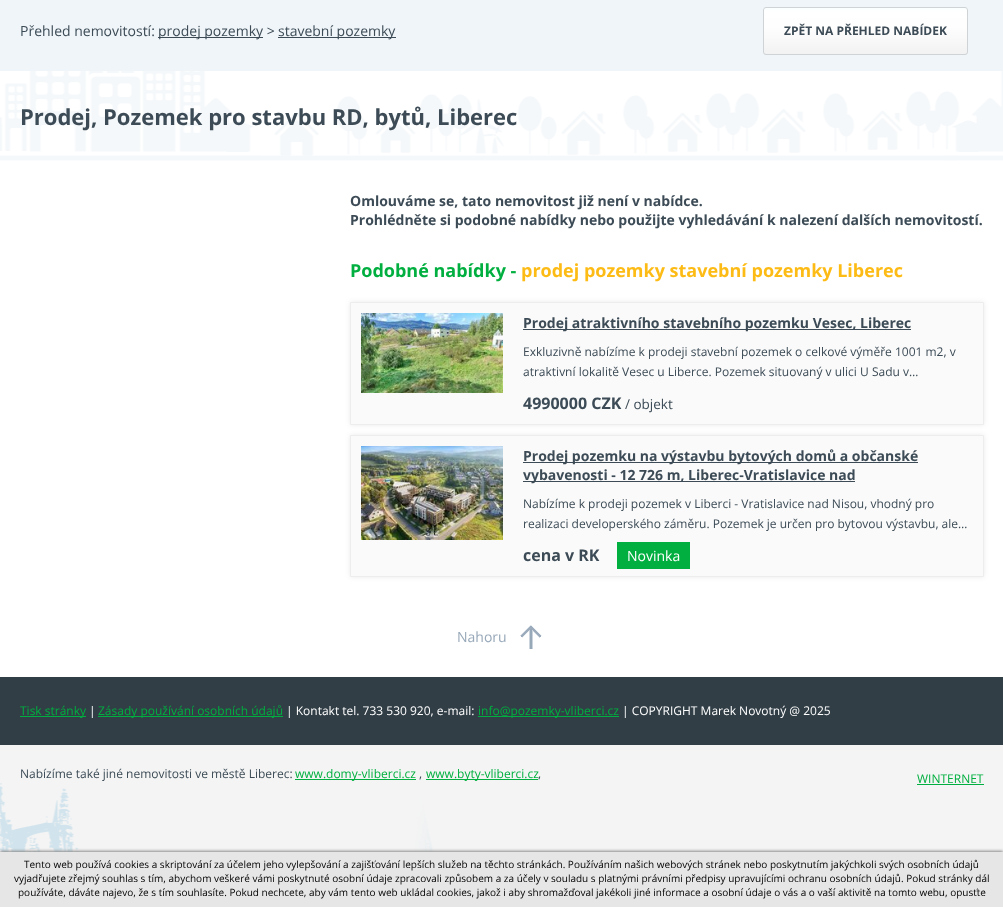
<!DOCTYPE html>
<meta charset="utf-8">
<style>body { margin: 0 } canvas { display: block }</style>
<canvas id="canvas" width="1003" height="907"></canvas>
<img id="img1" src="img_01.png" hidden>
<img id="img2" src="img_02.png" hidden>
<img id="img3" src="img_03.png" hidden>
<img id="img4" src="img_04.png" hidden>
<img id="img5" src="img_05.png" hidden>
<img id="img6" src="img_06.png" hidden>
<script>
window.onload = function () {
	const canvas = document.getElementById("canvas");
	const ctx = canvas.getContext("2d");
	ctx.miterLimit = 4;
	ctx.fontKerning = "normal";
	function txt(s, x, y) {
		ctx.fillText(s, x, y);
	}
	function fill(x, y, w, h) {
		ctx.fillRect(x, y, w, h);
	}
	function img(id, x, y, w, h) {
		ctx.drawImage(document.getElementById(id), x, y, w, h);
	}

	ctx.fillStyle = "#FFFFFF";
	fill(0, 0, 1003, 907);
	ctx.fillStyle = "#F0F5F9";
	fill(0, 0, 1003, 71);
	ctx.fillStyle = "#3C4B56";
	fill(158, 37, 105, 1);
	fill(278, 37, 118, 1);
	img("img1", 763, 8, 205, 47);
	ctx.beginPath();
	ctx.roundRect(763.5, 7.5, 204, 47, 2.5);
	ctx.strokeStyle = "#CFD3D6";
	ctx.stroke();
	img("img2", 0, 71, 1003, 90);
	ctx.fillStyle = "rgba(50, 50, 50, 0.1)";
	ctx.filter = "blur(2.5px)";
	ctx.beginPath();
	ctx.rect(350, 302, 634, 123);
	ctx.fill();
	ctx.filter = "none";
	ctx.fillStyle = "#FAFAFA";
	ctx.beginPath();
	ctx.rect(350.5, 302.5, 633, 122);
	ctx.fill();
	ctx.strokeStyle = "#EDEDED";
	ctx.stroke();
	img("img3", 361, 313, 142, 80);
	ctx.fillStyle = "#3C4B56";
	fill(523, 329, 388, 1);
	ctx.fillStyle = "rgba(50, 50, 50, 0.1)";
	ctx.filter = "blur(2.5px)";
	ctx.beginPath();
	ctx.rect(350, 435, 634, 142);
	ctx.fill();
	ctx.filter = "none";
	ctx.fillStyle = "#FAFAFA";
	ctx.beginPath();
	ctx.rect(350.5, 435.5, 633, 141);
	ctx.fill();
	ctx.stroke();
	img("img4", 361, 446, 142, 94);
	ctx.fillStyle = "#3C4B56";
	fill(523, 462, 395, 1);
	fill(523, 481, 332, 1);
	ctx.fillStyle = "#00AF3F";
	fill(617, 542, 73, 27);
	img("img5", 520, 625, 22, 24);
	ctx.fillStyle = "#313E46";
	fill(0, 677, 1003, 68);
	ctx.fillStyle = "#00AF3F";
	fill(20, 716, 66, 1);
	fill(98, 716, 185, 1);
	fill(478, 716, 141, 1);
	ctx.fillStyle = "#F4F4F4";
	fill(0, 745, 1003, 107);
	ctx.fillStyle = "#00AF3F";
	fill(917, 784, 67, 1);
	img("img6", 0, 783, 434, 69);
	fill(295, 779, 121, 1);
	fill(426, 779, 112, 1);
	ctx.fillStyle = "#878787";
	ctx.filter = "blur(1.5px)";
	ctx.beginPath();
	ctx.rect(0, 851, 1003, 55);
	ctx.fill();
	ctx.filter = "none";
	ctx.fillStyle = "#E6E6E6";
	fill(0, 852, 1003, 55);
	ctx.font = "14px Open Sans";
	ctx.fillStyle = "#3C4B56";
	txt("Přehled nemovitostí:", 20, 36);
	txt("prodej pozemky >", 158, 36);
	txt("stavební pozemky", 278, 36);
	ctx.font = "bold 12px Open Sans";
	txt("ZPĚT NA PŘEHLED NABÍDEK", 784, 35);
	ctx.font = "bold 22px Open Sans";
	txt("Prodej, Pozemek pro stavbu RD, bytů, Liberec", 20, 125);
	ctx.font = "bold 14px Open Sans";
	txt("Omlouváme se, tato nemovitost již není v nabídce.", 350, 206);
	txt("Prohlédněte si podobné nabídky nebo použijte vyhledávání k nalezení dalších nemovitostí.", 350, 225);
	ctx.font = "bold 18px Open Sans";
	ctx.fillStyle = "#00AF3F";
	txt("Podobné nabídky -", 350, 277);
	ctx.fillStyle = "#FDBB16";
	txt("prodej pozemky stavební pozemky Liberec", 521, 277);
	ctx.font = "bold 14px Open Sans";
	ctx.fillStyle = "#3C4B56";
	txt("Prodej atraktivního stavebního pozemku Vesec, Liberec", 523, 328);
	ctx.font = "12px Open Sans";
	txt("Exkluzivně nabízíme k prodeji stavební pozemek o celkové výměře 1001 m2, v", 523, 356);
	txt("atraktivní lokalitě Vesec u Liberce. Pozemek situovaný v ulici U Sadu v…", 523, 376);
	ctx.font = "bold 16px Open Sans";
	txt("4990000 CZK", 523, 409);
	ctx.font = "13.5px Open Sans";
	txt("/ objekt", 625, 409);
	ctx.font = "bold 14px Open Sans";
	txt("Prodej pozemku na výstavbu bytových domů a občanské", 523, 461);
	txt("vybavenosti - 12 726 m, Liberec-Vratislavice nad", 523, 480);
	ctx.font = "12px Open Sans";
	txt("Nabízíme k prodeji pozemek v Liberci - Vratislavice nad Nisou, vhodný pro", 523, 508);
	txt("realizaci developerského záměru. Pozemek je určen pro bytovou výstavbu, ale…", 523, 528);
	ctx.font = "bold 16px Open Sans";
	txt("cena v RK", 523, 561);
	ctx.font = "14px Open Sans";
	ctx.fillStyle = "#FFFFFF";
	txt("Novinka", 627, 561);
	ctx.fillStyle = "#97A8B9";
	txt("Nahoru", 457, 642);
	ctx.font = "12px Open Sans";
	ctx.fillStyle = "#00AF3F";
	txt("Tisk stránky", 20, 715);
	ctx.fillStyle = "#FFFFFF";
	txt("|", 89, 715);
	ctx.fillStyle = "#00AF3F";
	txt("Zásady používání osobních údajů", 98, 715);
	ctx.fillStyle = "#FFFFFF";
	txt("| Kontakt tel. 733 530 920, e-mail:", 286, 715);
	ctx.fillStyle = "#00AF3F";
	txt("info@pozemky-vliberci.cz", 478, 715);
	ctx.fillStyle = "#FFFFFF";
	txt("| COPYRIGHT Marek Novotný @ 2025", 622, 715);
	ctx.fillStyle = "#00AF3F";
	txt("WINTERNET", 917, 783);
	ctx.fillStyle = "#3C4B56";
	txt("Nabízíme také jiné nemovitosti ve městě Liberec:", 20, 778);
	ctx.fillStyle = "#00AF3F";
	txt("www.domy-vliberci.cz", 295, 778);
	ctx.fillStyle = "#3C4B56";
	txt(",", 419, 778);
	ctx.fillStyle = "#00AF3F";
	txt("www.byty-vliberci.cz", 426, 778);
	ctx.fillStyle = "#3C4B56";
	txt(",", 538, 778);
	ctx.font = "10px Open Sans";
	ctx.fillStyle = "#000000";
	txt("Tento web používá cookies a skriptování za účelem jeho vylepšování a zajišťování lepších služeb na těchto stránkách. Používáním našich webových stránek nebo poskytnutím jakýchkoli svých osobních údajů", 24, 868);
	txt("vyjadřujete zřejmý souhlas s tím, abychom veškeré vámi poskytnuté osobní údaje zpracovali způsobem a za účely v souladu s platnými právními předpisy upravujícími ochranu osobních údajů. Pokud stránky dál", 14, 882);
	txt("používáte, dáváte najevo, že s tím souhlasíte. Pokud nechcete, aby vám tento web ukládal cookies, jakož i aby shromažďoval jakékoli jiné informace a osobní údaje o vás a o vaší aktivitě na tomto webu, opusťte", 18, 896);
};
</script>
